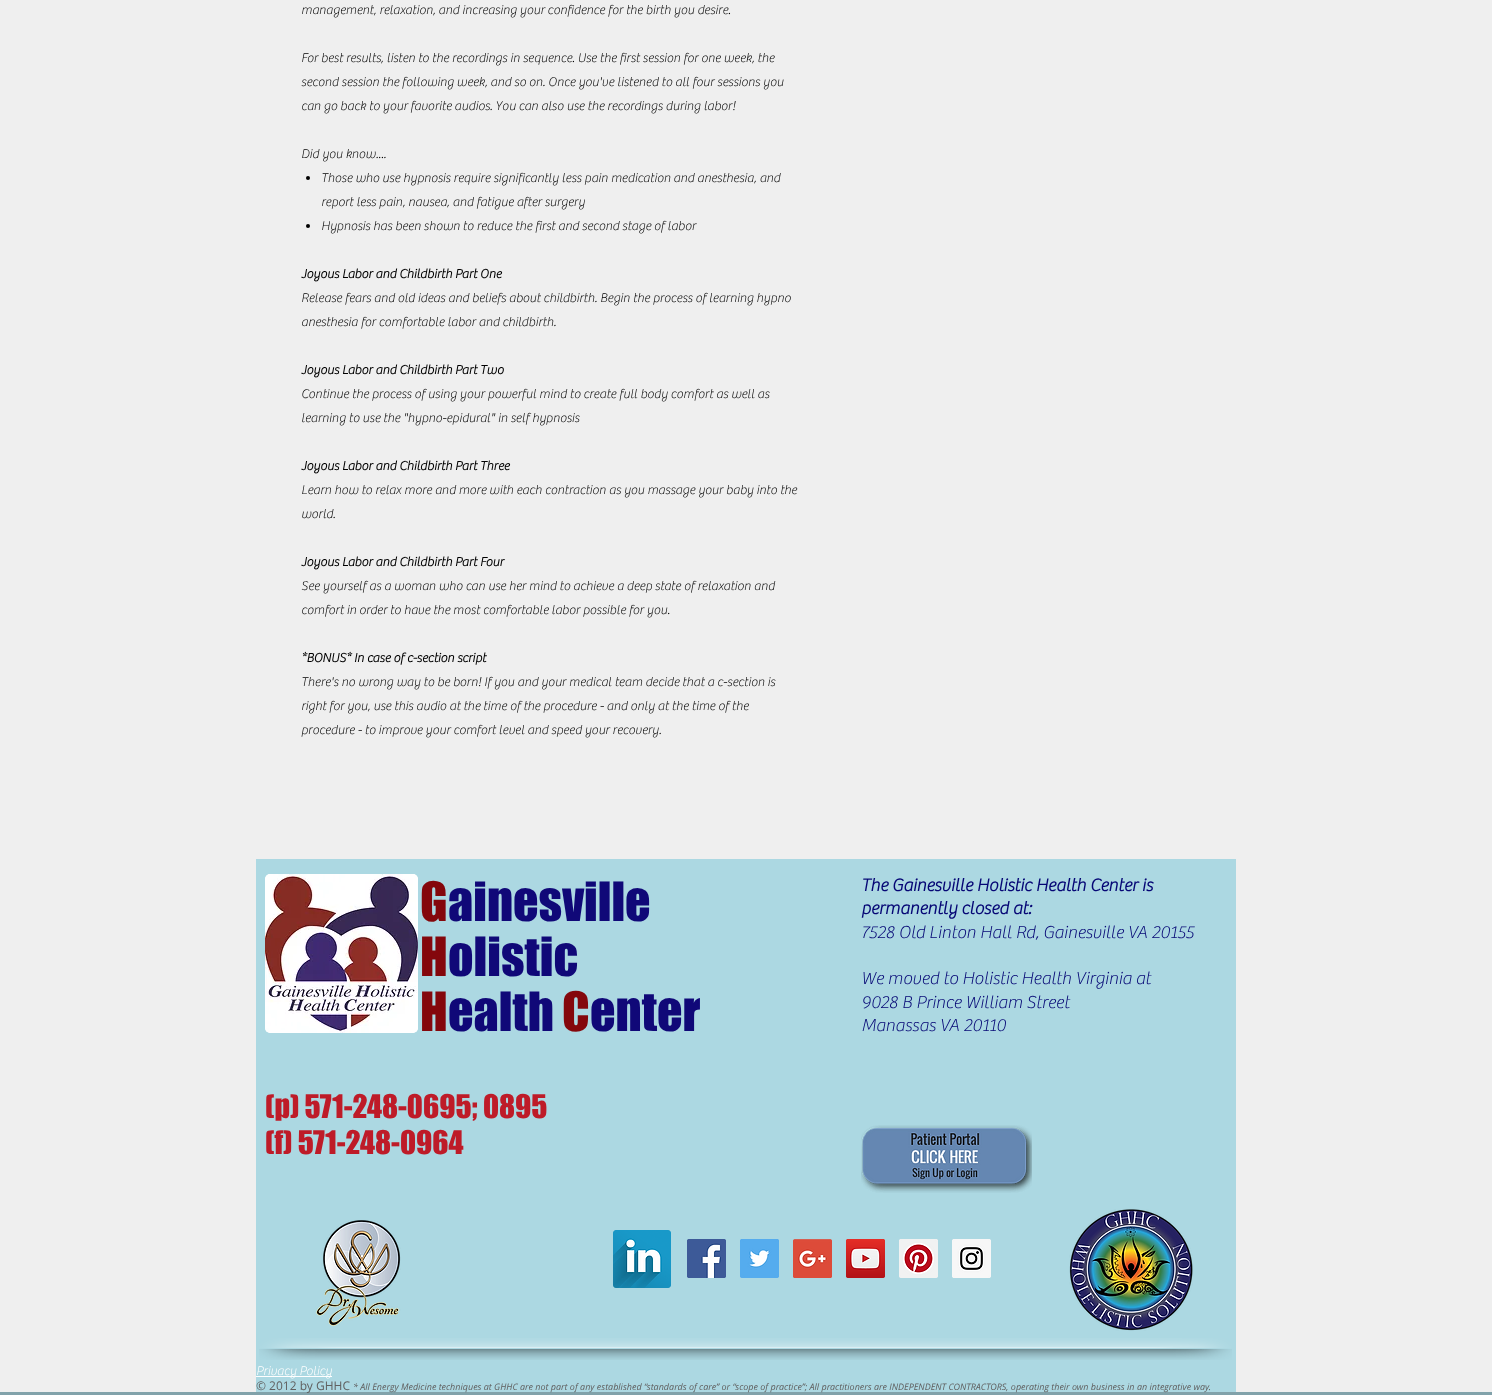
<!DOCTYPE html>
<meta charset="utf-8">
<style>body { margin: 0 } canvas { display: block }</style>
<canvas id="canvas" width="1492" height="1395"></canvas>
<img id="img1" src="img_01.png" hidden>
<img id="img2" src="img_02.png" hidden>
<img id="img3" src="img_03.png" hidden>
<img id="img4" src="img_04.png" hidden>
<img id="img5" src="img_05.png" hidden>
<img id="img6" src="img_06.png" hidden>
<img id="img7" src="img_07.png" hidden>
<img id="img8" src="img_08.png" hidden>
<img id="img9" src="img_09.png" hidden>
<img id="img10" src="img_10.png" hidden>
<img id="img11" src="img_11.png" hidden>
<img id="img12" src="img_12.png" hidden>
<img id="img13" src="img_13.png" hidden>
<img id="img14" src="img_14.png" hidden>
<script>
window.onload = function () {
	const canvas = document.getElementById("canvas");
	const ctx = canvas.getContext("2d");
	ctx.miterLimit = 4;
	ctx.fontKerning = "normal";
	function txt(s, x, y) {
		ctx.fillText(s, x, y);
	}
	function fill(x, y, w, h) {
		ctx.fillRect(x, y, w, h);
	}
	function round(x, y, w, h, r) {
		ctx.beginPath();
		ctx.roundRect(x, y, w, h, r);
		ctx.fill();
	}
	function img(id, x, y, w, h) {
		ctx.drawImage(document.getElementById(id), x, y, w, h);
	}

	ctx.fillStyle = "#EFEFEF";
	fill(0, 0, 1492, 1395);
	ctx.fillStyle = "#000000";
	ctx.beginPath();
	ctx.arc(308, 178, 2, 0, Math.PI * 2);
	ctx.fill();
	ctx.beginPath();
	ctx.arc(308, 226, 2, 0, Math.PI * 2);
	ctx.fill();
	ctx.fillStyle = "#ACD8E2";
	fill(256, 859, 980, 533);
	ctx.fillStyle = "#FFFFFF";
	round(265, 874, 153, 159, 5);
	img("img1", 265, 874, 153, 159);
	img("img2", 861, 1125, 171, 68);
	img("img3", 316, 1220, 85, 106);
	img("img4", 613, 1230, 58, 58);
	img("img5", 687, 1239, 39, 39);
	img("img6", 740, 1239, 39, 39);
	img("img7", 793, 1239, 39, 39);
	img("img8", 846, 1239, 39, 39);
	img("img9", 899, 1239, 39, 39);
	img("img10", 952, 1239, 39, 39);
	img("img11", 1069, 1209, 124, 122);
	img("img12", 259, 1338, 97, 22);
	img("img13", 356, 1338, 779, 22);
	img("img14", 1135, 1338, 97, 22);
	fill(256, 1376, 76, 1);
	ctx.fillStyle = "#81A2AA";
	fill(0, 1392, 1492, 3);
	ctx.font = "100 13px 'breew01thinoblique'";
	ctx.fillStyle = "#000000";
	txt("management, relaxation, and increasing your confidence for the birth you desire.", 301, 14);
	txt("For best results, listen to the recordings in sequence. Use the first session for one week, the", 301, 62);
	txt("second session the following week, and so on. Once you've listened to all four sessions you", 301, 86);
	txt("can go back to your favorite audios. You can also use the recordings during labor!", 301, 110);
	txt("Did you know....", 301, 158);
	txt("Those who use hypnosis require significantly less pain medication and anesthesia, and", 321, 182);
	txt("report less pain, nausea, and fatigue after surgery", 321, 206);
	txt("Hypnosis has been shown to reduce the first and second stage of labor", 321, 230);
	ctx.font = "bold 13px 'breew01thinoblique'";
	txt("Joyous Labor and Childbirth Part One", 301, 278);
	ctx.font = "100 13px 'breew01thinoblique'";
	txt("Release fears and old ideas and beliefs about childbirth. Begin the process of learning hypno", 301, 302);
	txt("anesthesia for comfortable labor and childbirth.", 301, 326);
	ctx.font = "bold 13px 'breew01thinoblique'";
	txt("Joyous Labor and Childbirth Part Two", 301, 374);
	ctx.font = "100 13px 'breew01thinoblique'";
	txt("Continue the process of using your powerful mind to create full body comfort as well as", 301, 398);
	txt("learning to use the \"hypno-epidural\" in self hypnosis", 301, 422);
	ctx.font = "bold 13px 'breew01thinoblique'";
	txt("Joyous Labor and Childbirth Part Three", 301, 470);
	ctx.font = "100 13px 'breew01thinoblique'";
	txt("Learn how to relax more and more with each contraction as you massage your baby into the", 301, 494);
	txt("world.", 301, 518);
	ctx.font = "bold 13px 'breew01thinoblique'";
	txt("Joyous Labor and Childbirth Part Four", 301, 566);
	ctx.font = "100 13px 'breew01thinoblique'";
	txt("See yourself as a woman who can use her mind to achieve a deep state of relaxation and", 301, 590);
	txt("comfort in order to have the most comfortable labor possible for you.", 301, 614);
	ctx.font = "bold 13px 'breew01thinoblique'";
	txt("*BONUS* In case of c-section script", 301, 662);
	ctx.font = "100 13px 'breew01thinoblique'";
	txt("There's no wrong way to be born! If you and your medical team decide that a c-section is", 301, 686);
	txt("right for you, use this audio at the time of the procedure - and only at the time of the", 301, 710);
	txt("procedure - to improve your comfort level and speed your recovery.", 301, 734);
	ctx.font = "50px 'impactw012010'";
	ctx.fillStyle = "#84070C";
	txt("G", 420, 921);
	ctx.fillStyle = "#100878";
	txt("ainesville", 448, 921);
	ctx.fillStyle = "#84070C";
	txt("H", 420, 976);
	ctx.fillStyle = "#100878";
	txt("olistic", 448, 976);
	ctx.fillStyle = "#84070C";
	txt("H", 420, 1031);
	ctx.fillStyle = "#100878";
	txt("ealth", 448, 1031);
	ctx.fillStyle = "#84070C";
	txt("C", 562, 1031);
	ctx.fillStyle = "#100878";
	txt("enter", 590, 1031);
	ctx.font = "bold 18px 'breew01thinoblique'";
	ctx.fillStyle = "#050675";
	txt("The Gainesville Holistic Health Center is", 861, 891);
	txt("permanently closed at:", 861, 914);
	ctx.font = "100 18px 'breew01thinoblique'";
	txt("7528 Old Linton Hall Rd, Gainesville VA 20155", 861, 938);
	txt("We moved to Holistic Health Virginia at", 861, 984);
	txt("9028 B Prince William Street", 861, 1008);
	txt("Manassas VA 20110", 861, 1031);
	ctx.font = "30px 'impactw012010'";
	ctx.fillStyle = "#BE1B28";
	txt("(p) 571-248-0695; 0895", 265, 1118);
	txt("(f) 571-248-0964", 265, 1154);
	ctx.font = "100 13px 'breew01thinoblique'";
	ctx.fillStyle = "#FFFFFF";
	txt("Privacy Policy", 256, 1375);
	ctx.font = "12px Open Sans";
	ctx.fillStyle = "#606060";
	txt("© 2012 by GHHC", 256, 1390);
	ctx.font = "italic 9px Open Sans";
	txt("* All Energy Medicine techniques at GHHC are not part of any established “standards of care” or “scope of practice”; All practitioners are INDEPENDENT CONTRACTORS, operating their own business in an integrative way.", 353, 1390);
};
</script>
